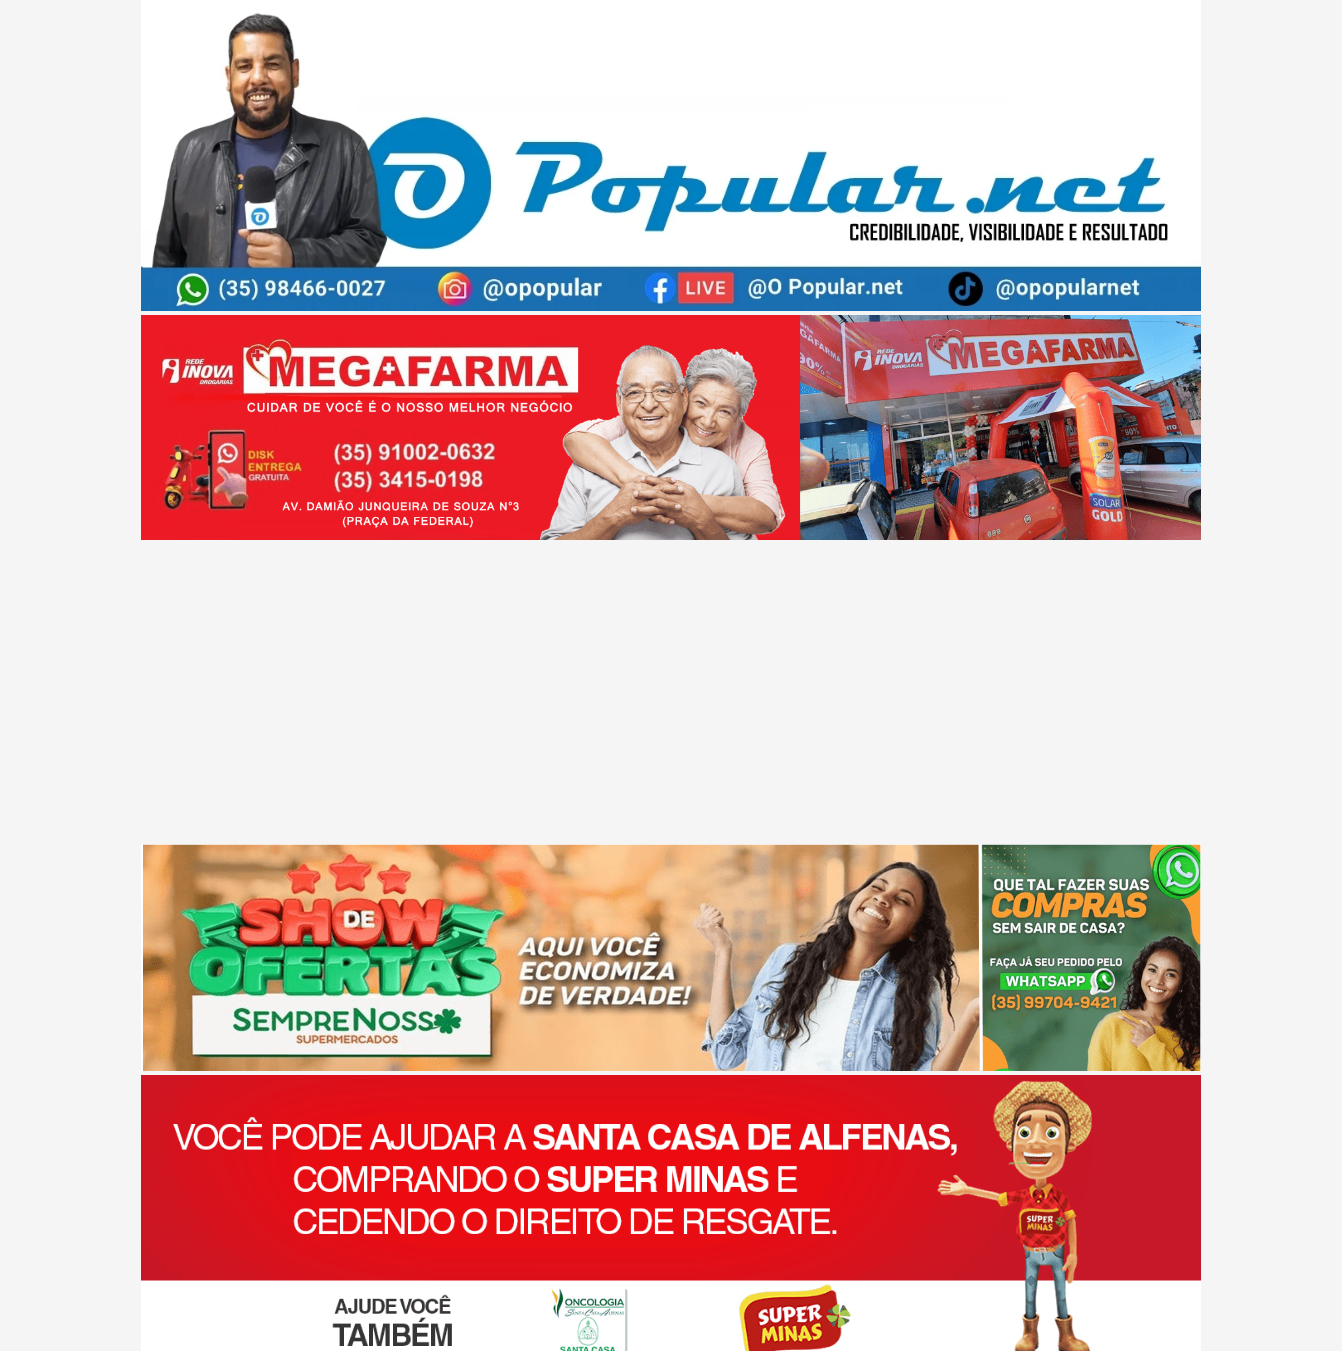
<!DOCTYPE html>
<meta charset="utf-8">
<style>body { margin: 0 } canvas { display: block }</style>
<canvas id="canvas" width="1342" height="1351"></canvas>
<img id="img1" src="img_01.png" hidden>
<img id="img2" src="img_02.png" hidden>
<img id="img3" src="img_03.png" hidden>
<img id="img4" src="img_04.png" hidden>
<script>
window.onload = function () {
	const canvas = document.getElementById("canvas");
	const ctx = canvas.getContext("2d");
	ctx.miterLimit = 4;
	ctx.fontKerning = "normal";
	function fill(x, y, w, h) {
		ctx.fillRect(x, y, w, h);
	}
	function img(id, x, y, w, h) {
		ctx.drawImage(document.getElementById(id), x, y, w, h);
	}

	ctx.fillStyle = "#F5F5F5";
	fill(0, 0, 1342, 1351);
	img("img1", 141, 0, 1060, 311);
	img("img2", 141, 315, 1060, 225);
	img("img3", 141, 844, 1060, 227);
	img("img4", 141, 1075, 1060, 276);
};
</script>
